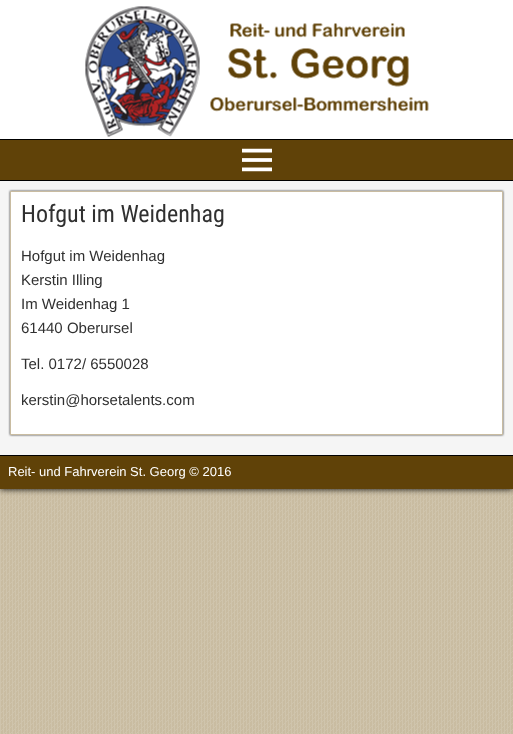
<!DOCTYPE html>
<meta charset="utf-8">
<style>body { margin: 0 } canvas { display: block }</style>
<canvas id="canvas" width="513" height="734"></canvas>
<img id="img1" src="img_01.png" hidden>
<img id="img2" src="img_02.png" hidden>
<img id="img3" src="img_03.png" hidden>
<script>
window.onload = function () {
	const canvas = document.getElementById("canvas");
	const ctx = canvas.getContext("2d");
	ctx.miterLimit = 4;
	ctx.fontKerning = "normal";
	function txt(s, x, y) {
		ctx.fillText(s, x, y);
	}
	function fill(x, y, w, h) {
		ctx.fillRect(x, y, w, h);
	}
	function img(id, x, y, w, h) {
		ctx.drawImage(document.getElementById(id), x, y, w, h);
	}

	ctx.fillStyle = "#C9BCA1";
	fill(0, 0, 513, 734);
	img("img1", 0, 489, 513, 245);
	ctx.fillStyle = "#000000";
	ctx.filter = "blur(3px)";
	ctx.beginPath();
	ctx.rect(0, 0, 513, 489);
	ctx.fill();
	ctx.filter = "none";
	ctx.fillStyle = "#FFFFFF";
	fill(0, 0, 513, 139);
	img("img2", 85, 6, 344, 131);
	ctx.fillStyle = "#000000";
	fill(0, 139, 513, 1);
	ctx.fillStyle = "#604208";
	fill(0, 140, 513, 40);
	ctx.fillStyle = "#000000";
	fill(0, 180, 513, 1);
	img("img3", 242, 148, 30, 24);
	ctx.fillStyle = "#F5F5F5";
	fill(0, 181, 513, 274);
	ctx.fillStyle = "#333333";
	ctx.filter = "blur(1px)";
	ctx.beginPath();
	ctx.rect(10, 191, 493, 244);
	ctx.fill();
	ctx.filter = "none";
	ctx.fillStyle = "#FFFFFF";
	ctx.beginPath();
	ctx.rect(10.5, 191.5, 492, 243);
	ctx.fill();
	ctx.strokeStyle = "#C9BCA1";
	ctx.stroke();
	ctx.fillStyle = "#604208";
	fill(0, 456, 513, 33);
	ctx.fillStyle = "#000000";
	fill(0, 455, 513, 1);
	ctx.font = "24px Roboto Condensed";
	ctx.fillStyle = "#303030";
	txt("Hofgut im Weidenhag", 21, 222);
	ctx.font = "15px Liberation Sans";
	txt("Hofgut im Weidenhag", 21, 261);
	txt("Kerstin Illing", 21, 285);
	txt("Im Weidenhag 1", 21, 309);
	txt("61440 Oberursel", 21, 333);
	txt("Tel. 0172/ 6550028", 21, 369);
	txt("kerstin@horsetalents.com", 21, 405);
	ctx.font = "13px Liberation Sans";
	ctx.fillStyle = "#FFFFFF";
	txt("Reit- und Fahrverein St. Georg © 2016", 8, 476);
};
</script>
